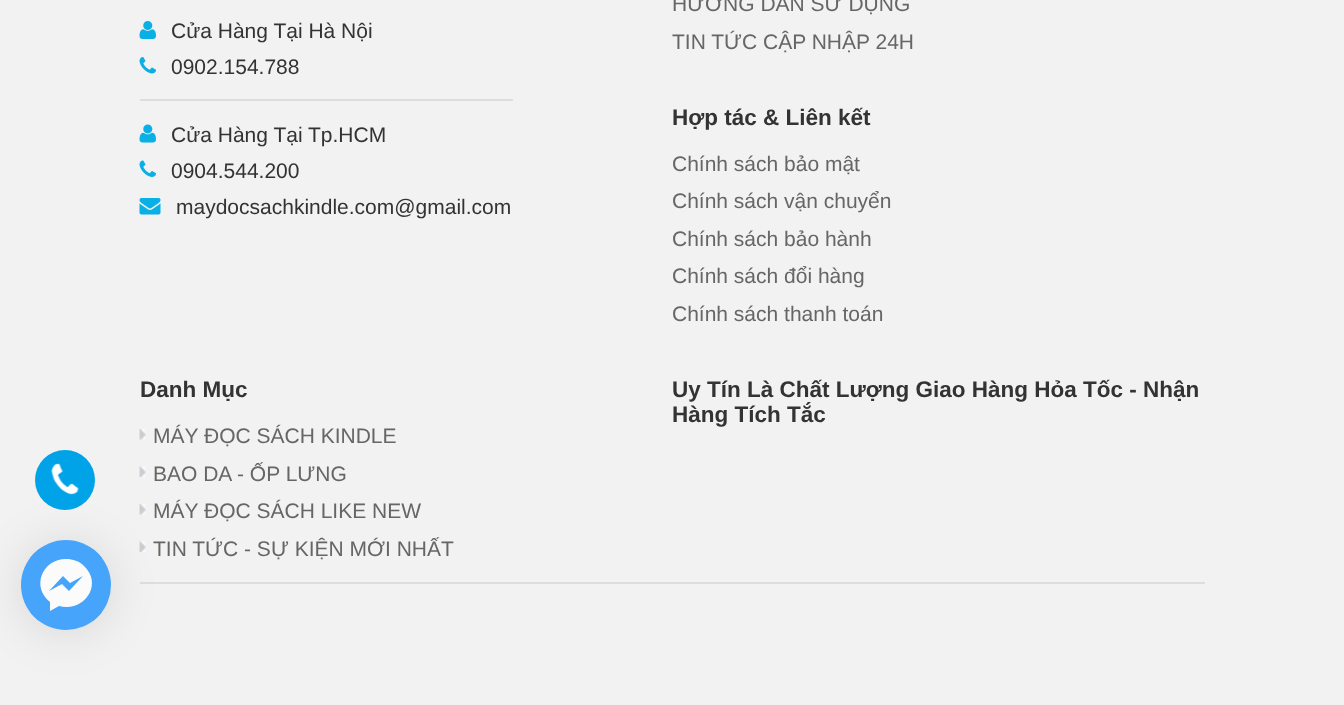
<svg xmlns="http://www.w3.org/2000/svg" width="1344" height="705">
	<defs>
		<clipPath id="clip1"><rect x="21" y="540" width="90" height="90" rx="45" /></clipPath>
	</defs>
	<rect width="100%" height="100%" fill="#F2F2F2" />
	<image x="139" y="466" width="7" height="11" href="assets/img8.png" />
	<image x="139" y="504" width="7" height="11" href="assets/img7.png" />
	<image x="139" y="541" width="7" height="11" href="assets/img8.png" />
	<rect x="140" y="582" width="1065" height="2" fill="#DDDDDD" />
	<rect x="21" y="543" width="90" height="90" rx="45" fill="#000000" fill-opacity="0.11" filter="blur(24px)" />
	<circle cx="65" cy="480" r="30" fill="#00A2E8" />
	<image x="51" y="463" width="28" height="32" href="assets/img1.png" />
	<rect x="140" y="99" width="373" height="2" fill="#DDDDDD" />
	<image x="139" y="21" width="17" height="18" href="assets/img2.png" />
	<text x="171" y="38" font-family="Liberation Sans" font-size="21" fill="#333333">Cửa Hàng Tại Hà Nội</text>
	<image x="139" y="57" width="17" height="17" href="assets/img3.png" />
	<text x="171" y="74" font-family="Liberation Sans" font-size="21" fill="#333333">0902.154.788</text>
	<image x="139" y="124" width="17" height="19" href="assets/img4.png" />
	<text x="171" y="142" font-family="Liberation Sans" font-size="21" fill="#333333">Cửa Hàng Tại Tp.HCM</text>
	<image x="139" y="160" width="17" height="17" href="assets/img5.png" />
	<text x="171" y="178" font-family="Liberation Sans" font-size="21" fill="#333333">0904.544.200</text>
	<image x="139" y="198" width="22" height="17" href="assets/img6.png" />
	<text x="176" y="214" font-family="Liberation Sans" font-size="21" fill="#333333">maydocsachkindle.com@gmail.com</text>
	<g font-family="Liberation Sans" font-size="21" fill="#666666">
		<text x="672" y="11">HƯỚNG DẪN SỬ DỤNG</text>
		<text x="672" y="49">TIN TỨC CẬP NHẬP 24H</text>
	</g>
	<text x="672" y="125" font-family="Liberation Sans" font-size="22.5" font-weight="700" fill="#333333">Hợp tác &amp; Liên kết</text>
	<g font-family="Liberation Sans" font-size="21" fill="#666666">
		<text x="672" y="171">Chính sách bảo mật</text>
		<text x="672" y="208">Chính sách vận chuyển</text>
		<text x="672" y="246">Chính sách bảo hành</text>
		<text x="672" y="283">Chính sách đổi hàng</text>
		<text x="672" y="321">Chính sách thanh toán</text>
	</g>
	<text x="140" y="397" font-family="Liberation Sans" font-size="22.5" font-weight="700" fill="#333333">Danh Mục</text>
	<image x="139" y="429" width="7" height="11" href="assets/img7.png" />
	<g font-family="Liberation Sans" font-size="21" fill="#666666">
		<text x="153" y="443">MÁY ĐỌC SÁCH KINDLE</text>
		<text x="153" y="481">BAO DA - ỐP LƯNG</text>
		<text x="153" y="518">MÁY ĐỌC SÁCH LIKE NEW</text>
		<text x="153" y="556">TIN TỨC - SỰ KIỆN MỚI NHẤT</text>
	</g>
	<g font-family="Liberation Sans" font-size="22.5" font-weight="700" fill="#333333">
		<text x="672" y="397">Uy Tín Là Chất Lượng Giao Hàng Hỏa Tốc - Nhận</text>
		<text x="672" y="422">Hàng Tích Tắc</text>
	</g>
	<circle cx="66" cy="585" r="45" fill="#46A4FB" />
	<g clip-path="url(#clip1)">
		<rect x="30" y="549" width="72" height="72" fill="#46A4FB" />
	</g>
	<path d="M66 559C42 559 31 587 50 602V611L59 606C83 613 104 585 84 566C79 561 73 559 66 559ZM69 591L62 584L49 591L63 576L70 583L83 576Z" fill="#FBFBFB" />
</svg>
